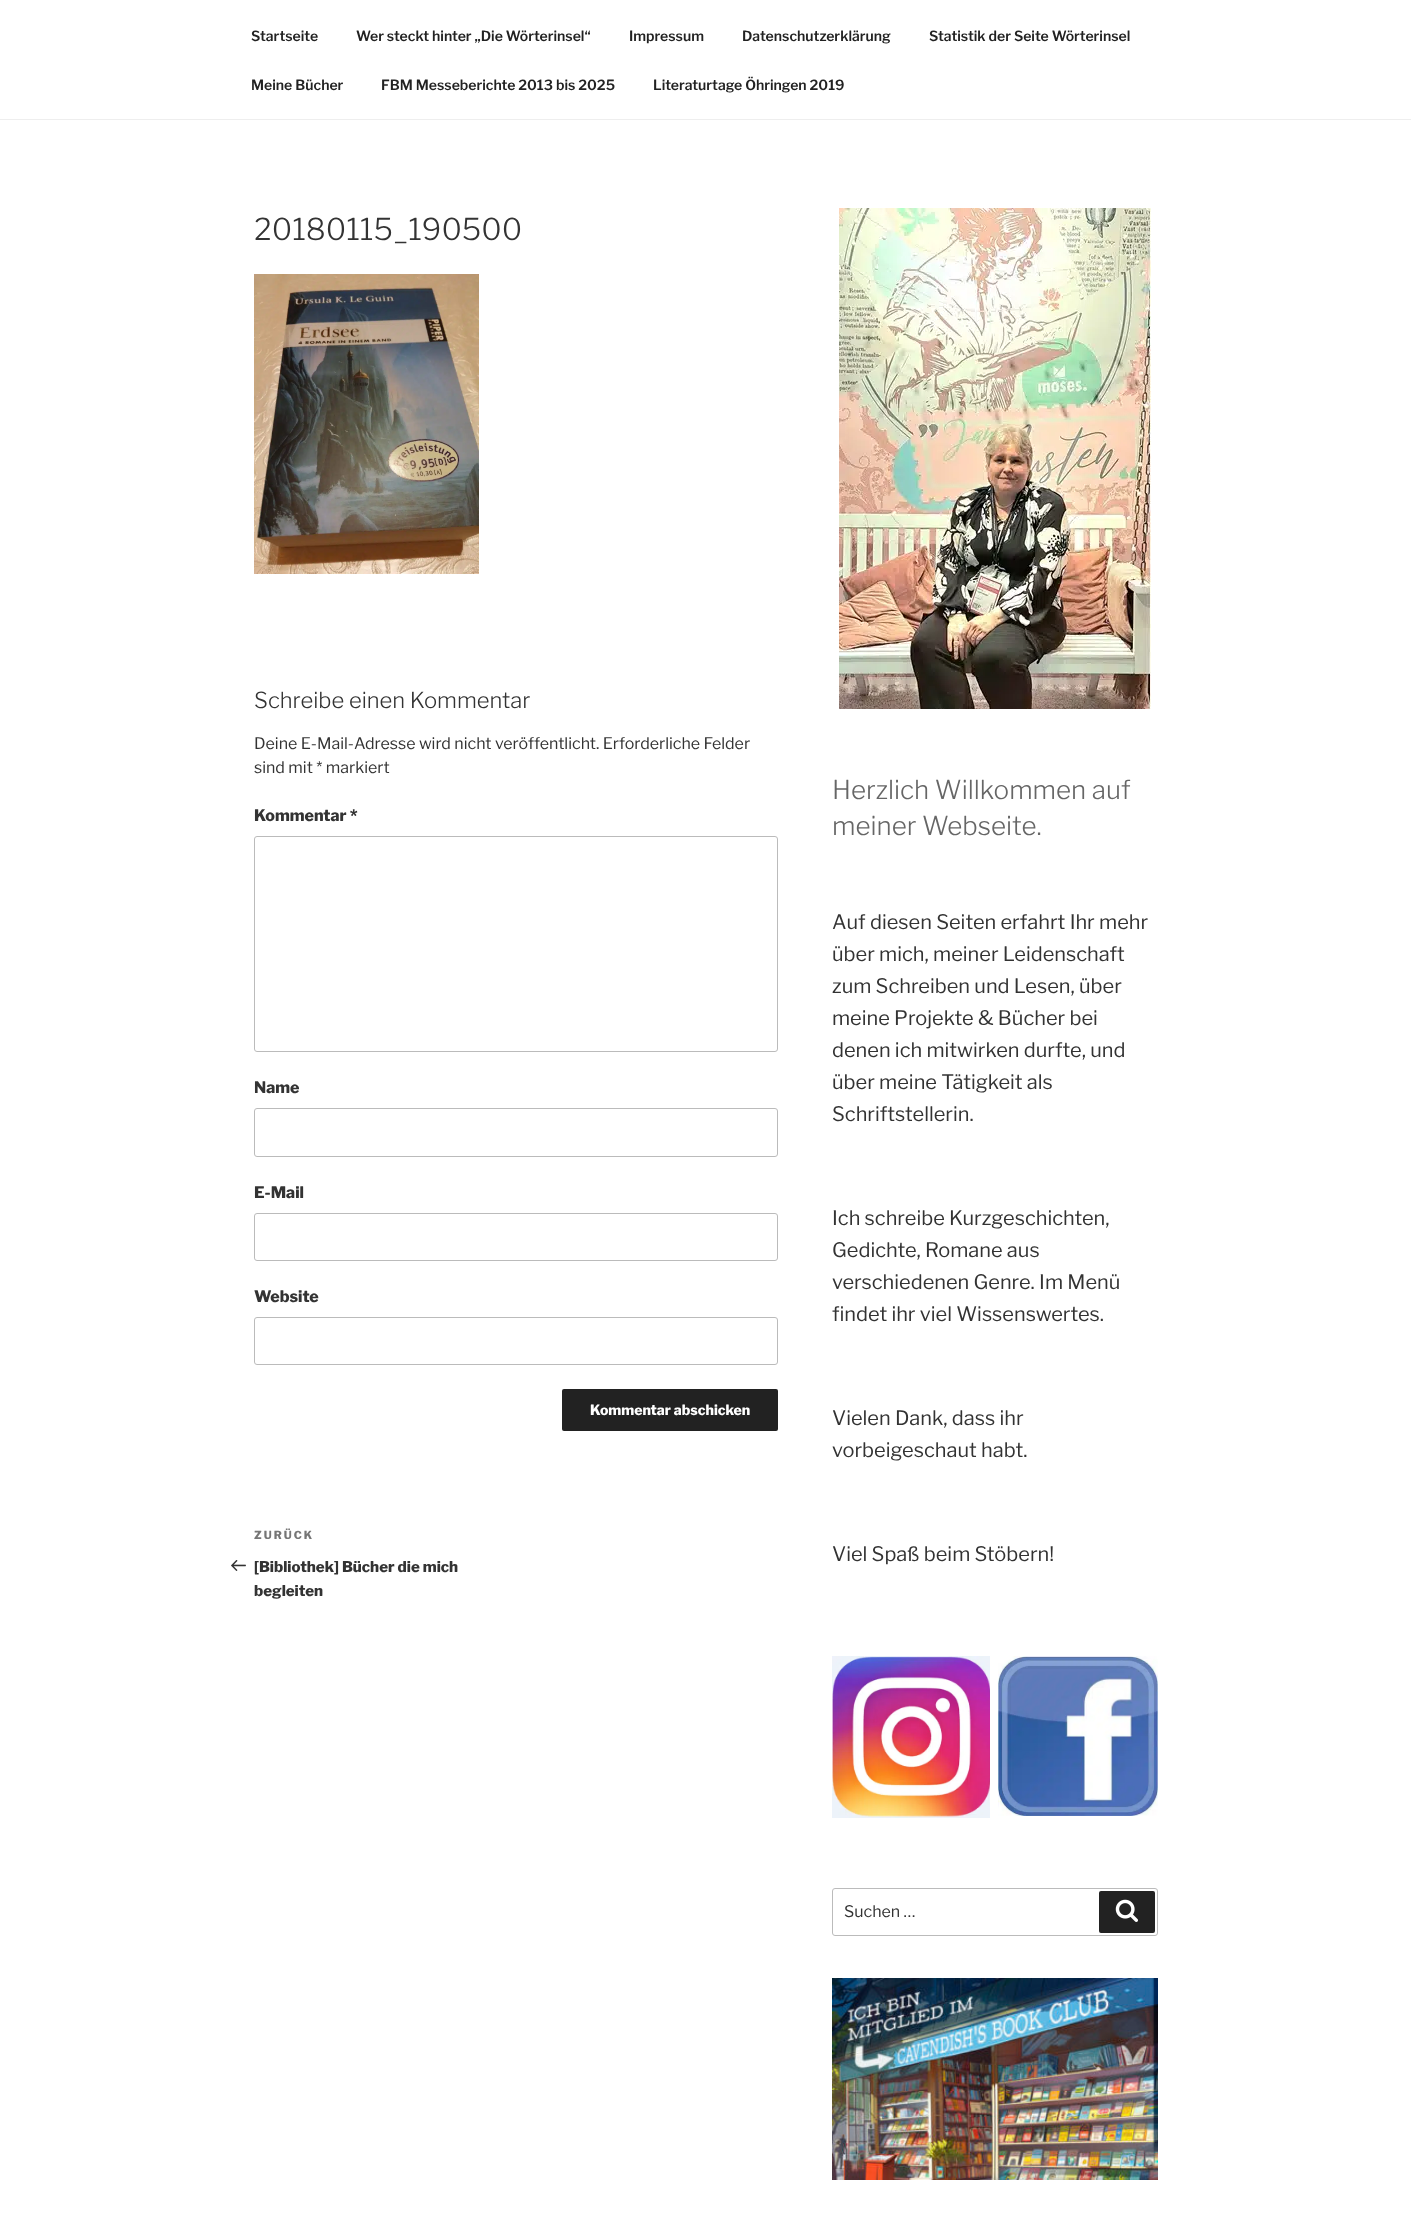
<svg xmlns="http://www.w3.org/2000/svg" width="1411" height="2219">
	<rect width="100%" height="100%" fill="#FFFFFF" />
	<rect x="0" y="119" width="1411" height="1" fill="#EEEEEE" />
	<g font-family="'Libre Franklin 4'" font-size="14" font-weight="100" fill="#222222">
		<text x="251" y="41">Startseite</text>
		<text x="356" y="41">Wer steckt hinter „Die Wörterinsel“</text>
		<text x="629" y="41">Impressum</text>
		<text x="742" y="41">Datenschutzerklärung</text>
		<text x="929" y="41">Statistik der Seite Wörterinsel</text>
		<text x="251" y="90">Meine Bücher</text>
		<text x="381" y="90">FBM Messeberichte 2013 bis 2025</text>
		<text x="653" y="90">Literaturtage Öhringen 2019</text>
	</g>
	<text x="254" y="240" font-family="'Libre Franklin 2'" font-size="30" font-weight="100" fill="#333333">20180115_190500</text>
	<image x="254" y="274" width="225" height="300" href="assets/img1.png" />
	<text x="254" y="708" font-family="'Libre Franklin 2'" font-size="22" font-weight="100" fill="#333333">Schreibe einen Kommentar</text>
	<g font-family="'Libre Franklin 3'" font-size="16" font-weight="100" fill="#333333">
		<text x="254" y="749">Deine E-Mail-Adresse wird nicht veröffentlicht. Erforderliche Felder</text>
		<text x="254" y="773">sind mit * markiert</text>
	</g>
	<text x="254" y="821" font-family="Libre Franklin" font-size="16" font-weight="100" fill="#333333">Kommentar *</text>
	<rect x="254.5" y="836.5" width="523" height="215" rx="2.5" fill="none" stroke="#BBBBBB" />
	<text x="254" y="1093" font-family="Libre Franklin" font-size="16" font-weight="100" fill="#333333">Name</text>
	<rect x="254.5" y="1108.5" width="523" height="48" rx="2.5" fill="none" stroke="#BBBBBB" />
	<text x="254" y="1198" font-family="Libre Franklin" font-size="16" font-weight="100" fill="#333333">E-Mail</text>
	<rect x="254.5" y="1213.5" width="523" height="47" rx="2.5" fill="none" stroke="#BBBBBB" />
	<text x="254" y="1302" font-family="Libre Franklin" font-size="16" font-weight="100" fill="#333333">Website</text>
	<rect x="254.5" y="1317.5" width="523" height="47" rx="2.5" fill="none" stroke="#BBBBBB" />
	<rect x="562" y="1389" width="216" height="42" rx="2" fill="#222222" />
	<text x="590" y="1415" font-family="Libre Franklin" font-size="14" font-weight="100" fill="#FFFFFF">Kommentar abschicken</text>
	<text x="254" y="1539" font-family="Libre Franklin" font-size="11" font-weight="100" letter-spacing="2" fill="#767676">ZURÜCK</text>
	<image x="231" y="1560" width="15" height="11" href="assets/img2.png" />
	<g font-family="Libre Franklin" font-size="15" font-weight="100" fill="#333333">
		<text x="254" y="1572">[Bibliothek] Bücher die mich</text>
		<text x="254" y="1596">begleiten</text>
	</g>
	<image x="839" y="208" width="312" height="501" href="assets/img3.png" />
	<g font-family="'Libre Franklin 2'" font-size="26" font-weight="100" fill="#666666">
		<text x="832" y="799">Herzlich Willkommen auf</text>
		<text x="832" y="835">meiner Webseite.</text>
	</g>
	<g font-family="'Libre Franklin 3'" font-size="20" font-weight="100" fill="#333333">
		<text x="832" y="929">Auf diesen Seiten erfahrt Ihr mehr</text>
		<text x="832" y="961">über mich, meiner Leidenschaft</text>
		<text x="832" y="993">zum Schreiben und Lesen, über</text>
		<text x="832" y="1025">meine Projekte &amp; Bücher bei</text>
		<text x="832" y="1057">denen ich mitwirken durfte, und</text>
		<text x="832" y="1089">über meine Tätigkeit als</text>
		<text x="832" y="1121">Schriftstellerin.</text>
		<text x="832" y="1225">Ich schreibe Kurzgeschichten,</text>
		<text x="832" y="1257">Gedichte, Romane aus</text>
		<text x="832" y="1289">verschiedenen Genre. Im Menü</text>
		<text x="832" y="1321">findet ihr viel Wissenswertes.</text>
		<text x="832" y="1425">Vielen Dank, dass ihr</text>
		<text x="832" y="1457">vorbeigeschaut habt.</text>
		<text x="832" y="1561">Viel Spaß beim Stöbern!</text>
	</g>
	<image x="832" y="1656" width="158" height="162" href="assets/img4.png" />
	<image x="998" y="1656" width="160" height="160" href="assets/img5.png" />
	<rect x="832.5" y="1888.5" width="325" height="47" rx="2.5" fill="none" stroke="#BBBBBB" />
	<text x="844" y="1917" font-family="'Libre Franklin 3'" font-size="16" font-weight="100" fill="#333333">Suchen …</text>
	<rect x="1099" y="1891" width="56" height="42" rx="2" fill="#222222" />
	<image x="1115" y="1899" width="23" height="23" href="assets/img6.png" />
	<image x="832" y="1978" width="326" height="202" href="assets/img7.png" />
</svg>
